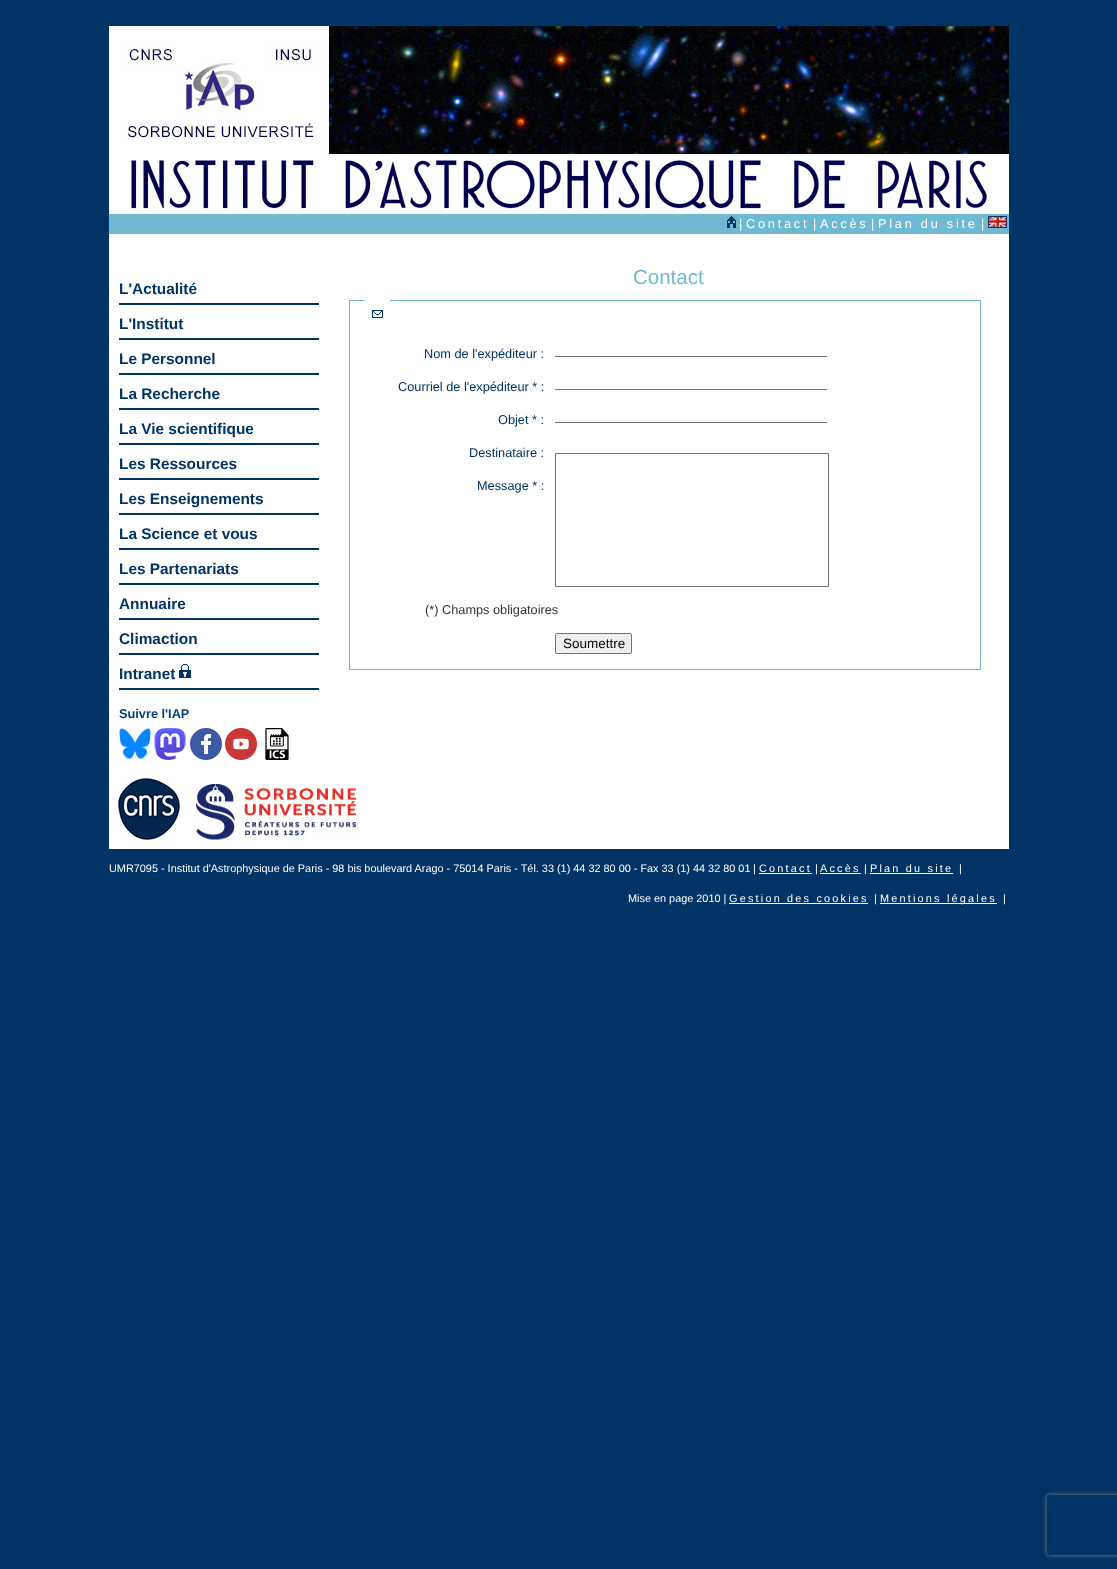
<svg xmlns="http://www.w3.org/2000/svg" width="1117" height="1569">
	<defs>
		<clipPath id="clip1"><path d="M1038 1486H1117V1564H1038ZM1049 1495H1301C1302 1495 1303 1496 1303 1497V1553C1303 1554 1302 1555 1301 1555H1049C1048 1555 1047 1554 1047 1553V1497C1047 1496 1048 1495 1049 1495Z" clip-rule="evenodd" /></clipPath>
	</defs>
	<rect width="100%" height="100%" fill="#003366" />
	<rect x="109" y="26" width="900" height="188" fill="#FFFFFF" />
	<image x="125" y="26" width="884" height="128" href="assets/img1.png" />
	<image x="131" y="160" width="856" height="49" href="assets/img2.png" />
	<rect x="109" y="214" width="900" height="20" fill="#6FBAD2" />
	<image x="727" y="216" width="9" height="12" href="assets/img3.png" />
	<text x="739" y="228" font-family="Liberation Sans" font-size="12.75" fill="#FFFFFF">|</text>
	<text x="746" y="228" font-family="Liberation Sans" font-size="12.75" letter-spacing="2.75" fill="#FFFFFF">Contact</text>
	<text x="813" y="228" font-family="Liberation Sans" font-size="12.75" fill="#FFFFFF">|</text>
	<text x="820" y="228" font-family="Liberation Sans" font-size="12.75" letter-spacing="2.75" fill="#FFFFFF">Accès</text>
	<text x="871" y="228" font-family="Liberation Sans" font-size="12.75" fill="#FFFFFF">|</text>
	<text x="878" y="228" font-family="Liberation Sans" font-size="12.75" letter-spacing="2.75" fill="#FFFFFF">Plan du site</text>
	<text x="981" y="228" font-family="Liberation Sans" font-size="12.75" fill="#FFFFFF">|</text>
	<image x="988" y="216" width="19" height="12" href="assets/img4.png" />
	<rect x="109" y="234" width="900" height="615" fill="#FFFFFF" />
	<image x="118" y="778" width="62" height="62" href="assets/img5.png" />
	<image x="196" y="784" width="160" height="56" href="assets/img6.png" />
	<rect x="119" y="303" width="200" height="2" fill="#003366" />
	<text x="119" y="294" font-family="Liberation Sans" font-size="15.4" font-weight="700" fill="#003366">L'Actualité</text>
	<rect x="119" y="338" width="200" height="2" fill="#003366" />
	<text x="119" y="329" font-family="Liberation Sans" font-size="15.4" font-weight="700" fill="#003366">L'Institut</text>
	<rect x="119" y="373" width="200" height="2" fill="#003366" />
	<text x="119" y="364" font-family="Liberation Sans" font-size="15.4" font-weight="700" fill="#003366">Le Personnel</text>
	<rect x="119" y="408" width="200" height="2" fill="#003366" />
	<text x="119" y="399" font-family="Liberation Sans" font-size="15.4" font-weight="700" fill="#003366">La Recherche</text>
	<rect x="119" y="443" width="200" height="2" fill="#003366" />
	<text x="119" y="434" font-family="Liberation Sans" font-size="15.4" font-weight="700" fill="#003366">La Vie scientifique</text>
	<rect x="119" y="478" width="200" height="2" fill="#003366" />
	<text x="119" y="469" font-family="Liberation Sans" font-size="15.4" font-weight="700" fill="#003366">Les Ressources</text>
	<rect x="119" y="513" width="200" height="2" fill="#003366" />
	<text x="119" y="504" font-family="Liberation Sans" font-size="15.4" font-weight="700" fill="#003366">Les Enseignements</text>
	<rect x="119" y="548" width="200" height="2" fill="#003366" />
	<text x="119" y="539" font-family="Liberation Sans" font-size="15.4" font-weight="700" fill="#003366">La Science et vous</text>
	<rect x="119" y="583" width="200" height="2" fill="#003366" />
	<text x="119" y="574" font-family="Liberation Sans" font-size="15.4" font-weight="700" fill="#003366">Les Partenariats</text>
	<rect x="119" y="618" width="200" height="2" fill="#003366" />
	<text x="119" y="609" font-family="Liberation Sans" font-size="15.4" font-weight="700" fill="#003366">Annuaire</text>
	<rect x="119" y="653" width="200" height="2" fill="#003366" />
	<text x="119" y="644" font-family="Liberation Sans" font-size="15.4" font-weight="700" fill="#003366">Climaction</text>
	<image x="179" y="664" width="12" height="14" href="assets/img7.png" />
	<rect x="119" y="688" width="200" height="2" fill="#003366" />
	<text x="119" y="679" font-family="Liberation Sans" font-size="15.4" font-weight="700" fill="#003366">Intranet</text>
	<text x="119" y="718" font-family="Liberation Sans" font-size="12.75" font-weight="700" fill="#004080">Suivre l'IAP</text>
	<image x="119" y="728" width="32" height="31" href="assets/img8.png" />
	<image x="154" y="728" width="32" height="32" href="assets/img9.png" />
	<image x="190" y="728" width="32" height="32" href="assets/img10.png" />
	<image x="225" y="728" width="32" height="32" href="assets/img11.png" />
	<image x="265" y="728" width="24" height="32" href="assets/img12.png" />
	<text x="633" y="284" font-family="Liberation Sans" font-size="20.5" fill="#6FBAD2">Contact</text>
	<rect x="349.5" y="300.5" width="631" height="369" fill="none" stroke="#6FBAD2" />
	<rect x="365" y="300" width="25" height="1" fill="#FFFFFF" />
	<image x="372" y="310" width="11" height="8" href="assets/img13.png" />
	<text x="424" y="358" font-family="Liberation Sans" font-size="12.75" fill="#003366">Nom de l'expéditeur :</text>
	<rect x="555" y="356" width="272" height="1" fill="#777777" />
	<text x="398" y="391" font-family="Liberation Sans" font-size="12.75" fill="#003366">Courriel de l'expéditeur * :</text>
	<rect x="555" y="389" width="272" height="1" fill="#777777" />
	<text x="498" y="424" font-family="Liberation Sans" font-size="12.75" fill="#003366">Objet * :</text>
	<rect x="555" y="422" width="272" height="1" fill="#777777" />
	<text x="469" y="457" font-family="Liberation Sans" font-size="12.75" fill="#003366">Destinataire :</text>
	<rect x="555.5" y="453.5" width="273" height="133" fill="none" stroke="#777777" />
	<text x="477" y="490" font-family="Liberation Sans" font-size="12.75" fill="#003366">Message * :</text>
	<text x="425" y="614" font-family="Liberation Sans" font-size="12.75" fill="#333333">(*) Champs obligatoires</text>
	<rect x="555.5" y="633.5" width="76" height="20" rx="1.5" fill="#EFEFEF" stroke="#767676" />
	<text x="563" y="648" font-family="Liberation Sans" font-size="13.5" fill="#000000">Soumettre</text>
	<g clip-path="url(#clip1)">
		<rect x="1047" y="1495" width="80" height="60" rx="2" fill="#808080" filter="blur(2.5px)" />
	</g>
	<g font-family="Liberation Sans" font-size="10.88" fill="#FFFFFF">
		<text x="109" y="872">UMR7095 - Institut d'Astrophysique de Paris - 98 bis boulevard Arago - 75014 Paris - Tél. 33 (1) 44 32 80 00 - Fax 33 (1) 44 32 80 01</text>
		<text x="753" y="872">|</text>
	</g>
	<text x="759" y="872" font-family="Liberation Sans" font-size="10.88" letter-spacing="2.2" fill="#FFFFFF">Contact</text>
	<rect x="759" y="873" width="53" height="1" fill="#FFFFFF" />
	<text x="815" y="872" font-family="Liberation Sans" font-size="10.88" fill="#FFFFFF">|</text>
	<text x="820" y="872" font-family="Liberation Sans" font-size="10.88" letter-spacing="2.2" fill="#FFFFFF">Accès</text>
	<rect x="820" y="873" width="41" height="1" fill="#FFFFFF" />
	<text x="864" y="872" font-family="Liberation Sans" font-size="10.88" fill="#FFFFFF">|</text>
	<text x="870" y="872" font-family="Liberation Sans" font-size="10.88" letter-spacing="2.2" fill="#FFFFFF">Plan du site</text>
	<rect x="870" y="873" width="83" height="1" fill="#FFFFFF" />
	<g font-family="Liberation Sans" font-size="10.88" fill="#FFFFFF">
		<text x="959" y="872">|</text>
		<text x="628" y="902">Mise en page 2010 |</text>
	</g>
	<text x="729" y="902" font-family="Liberation Sans" font-size="10.88" letter-spacing="2.2" fill="#FFFFFF">Gestion des cookies</text>
	<rect x="729" y="903" width="139" height="1" fill="#FFFFFF" />
	<text x="874" y="902" font-family="Liberation Sans" font-size="10.88" fill="#FFFFFF">|</text>
	<rect x="880" y="903" width="117" height="1" fill="#FFFFFF" />
	<text x="880" y="902" font-family="Liberation Sans" font-size="10.88" letter-spacing="2.2" fill="#FFFFFF">Mentions légales</text>
	<text x="1003" y="902" font-family="Liberation Sans" font-size="10.88" fill="#FFFFFF">|</text>
</svg>
